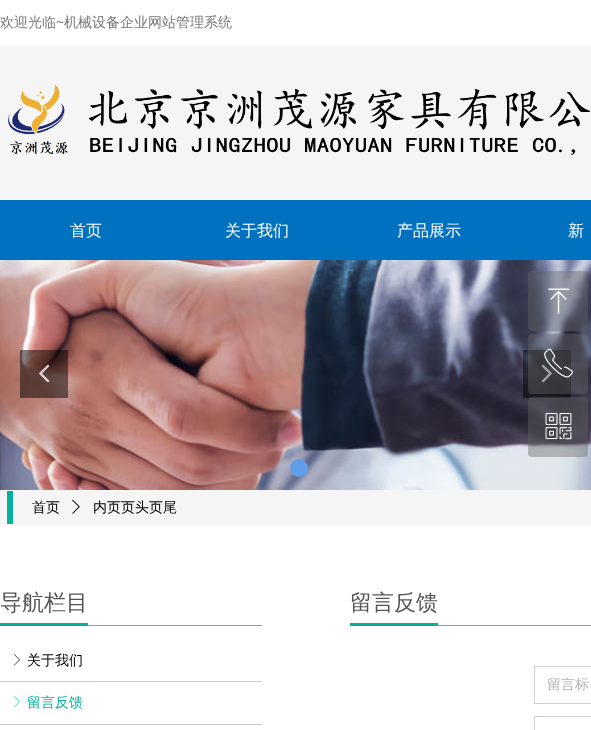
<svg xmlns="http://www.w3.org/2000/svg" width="591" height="730">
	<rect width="100%" height="100%" fill="#FFFFFF" />
	<text x="0" y="27" font-family="WenQuanYi Zen Hei" font-size="14" font-weight="500" fill="#777777">欢迎光临</text>
	<text x="56" y="27" font-family="Noto Sans" font-size="14" fill="#777777">~</text>
	<text x="64" y="27" font-family="WenQuanYi Zen Hei" font-size="14" font-weight="500" fill="#777777">机械设备企业网站管理系统</text>
	<rect x="0" y="45" width="591" height="155" fill="#F5F5F5" />
	<image x="7" y="84" width="584" height="72" href="assets/img1.png" />
	<rect x="0" y="200" width="591" height="60" fill="#0071BF" />
	<g font-family="WenQuanYi Zen Hei" font-size="16" font-weight="500" fill="#FFFFFF">
		<text x="70" y="236">首页</text>
		<text x="225" y="236">关于我们</text>
		<text x="397" y="236">产品展示</text>
		<text x="568" y="236">新</text>
	</g>
	<image x="0" y="260" width="591" height="230" href="assets/img2.png" />
	<rect x="20" y="350" width="48" height="48" fill="#000000" fill-opacity="0.49" />
	<image x="38" y="364" width="12" height="19" href="assets/img3.png" />
	<rect x="523" y="350" width="48" height="48" fill="#000000" fill-opacity="0.49" />
	<image x="541" y="364" width="12" height="19" href="assets/img4.png" />
	<circle cx="299" cy="468" r="9" fill="#609EE9" />
	<rect x="0" y="490" width="591" height="35" fill="#F5F5F5" />
	<rect x="7" y="491" width="6" height="33" fill="#02B29C" />
	<text x="32" y="512" font-family="WenQuanYi Zen Hei" font-size="14" font-weight="500" fill="#000000">首页</text>
	<image x="72" y="499" width="8" height="15" href="assets/img5.png" />
	<text x="93" y="512" font-family="WenQuanYi Zen Hei" font-size="14" font-weight="500" fill="#000000">内页页头页尾</text>
	<rect x="88" y="625" width="174" height="1" fill="#999999" />
	<text x="0" y="610" font-family="WenQuanYi Zen Hei" font-size="22" font-weight="500" fill="#555555">导航栏目</text>
	<rect x="0" y="623" width="88" height="3" fill="#02B29C" />
	<rect x="438" y="625" width="153" height="1" fill="#999999" />
	<text x="350" y="610" font-family="WenQuanYi Zen Hei" font-size="22" font-weight="500" fill="#555555">留言反馈</text>
	<rect x="350" y="623" width="88" height="3" fill="#02B29C" />
	<image x="14" y="654" width="6" height="12" href="assets/img6.png" />
	<text x="27" y="665" font-family="WenQuanYi Zen Hei" font-size="14" font-weight="500" fill="#000000">关于我们</text>
	<rect x="0" y="681" width="262" height="1" fill="#CCCCCC" />
	<image x="14" y="696" width="6" height="12" href="assets/img7.png" />
	<text x="27" y="707" font-family="WenQuanYi Zen Hei" font-size="14" font-weight="500" fill="#03B29C">留言反馈</text>
	<rect x="0" y="724" width="262" height="1" fill="#CCCCCC" />
	<rect x="534.5" y="666.5" width="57" height="37" fill="none" stroke="#CCD1D9" />
	<text x="547" y="689" font-family="WenQuanYi Zen Hei" font-size="14" font-weight="500" fill="#B3B3B3">留言标</text>
	<rect x="534.5" y="716.5" width="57" height="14" fill="none" stroke="#CCD1D9" />
	<rect x="528" y="271" width="60" height="60" rx="4" fill="#666666" fill-opacity="0.41" />
	<image x="548" y="288" width="21" height="26" href="assets/img8.png" />
	<rect x="528" y="334" width="60" height="60" rx="4" fill="#666666" fill-opacity="0.41" />
	<image x="544" y="348" width="29" height="30" href="assets/img9.png" />
	<rect x="528" y="397" width="60" height="60" rx="4" fill="#666666" fill-opacity="0.41" />
	<image x="545" y="413" width="27" height="27" href="assets/img10.png" />
</svg>
